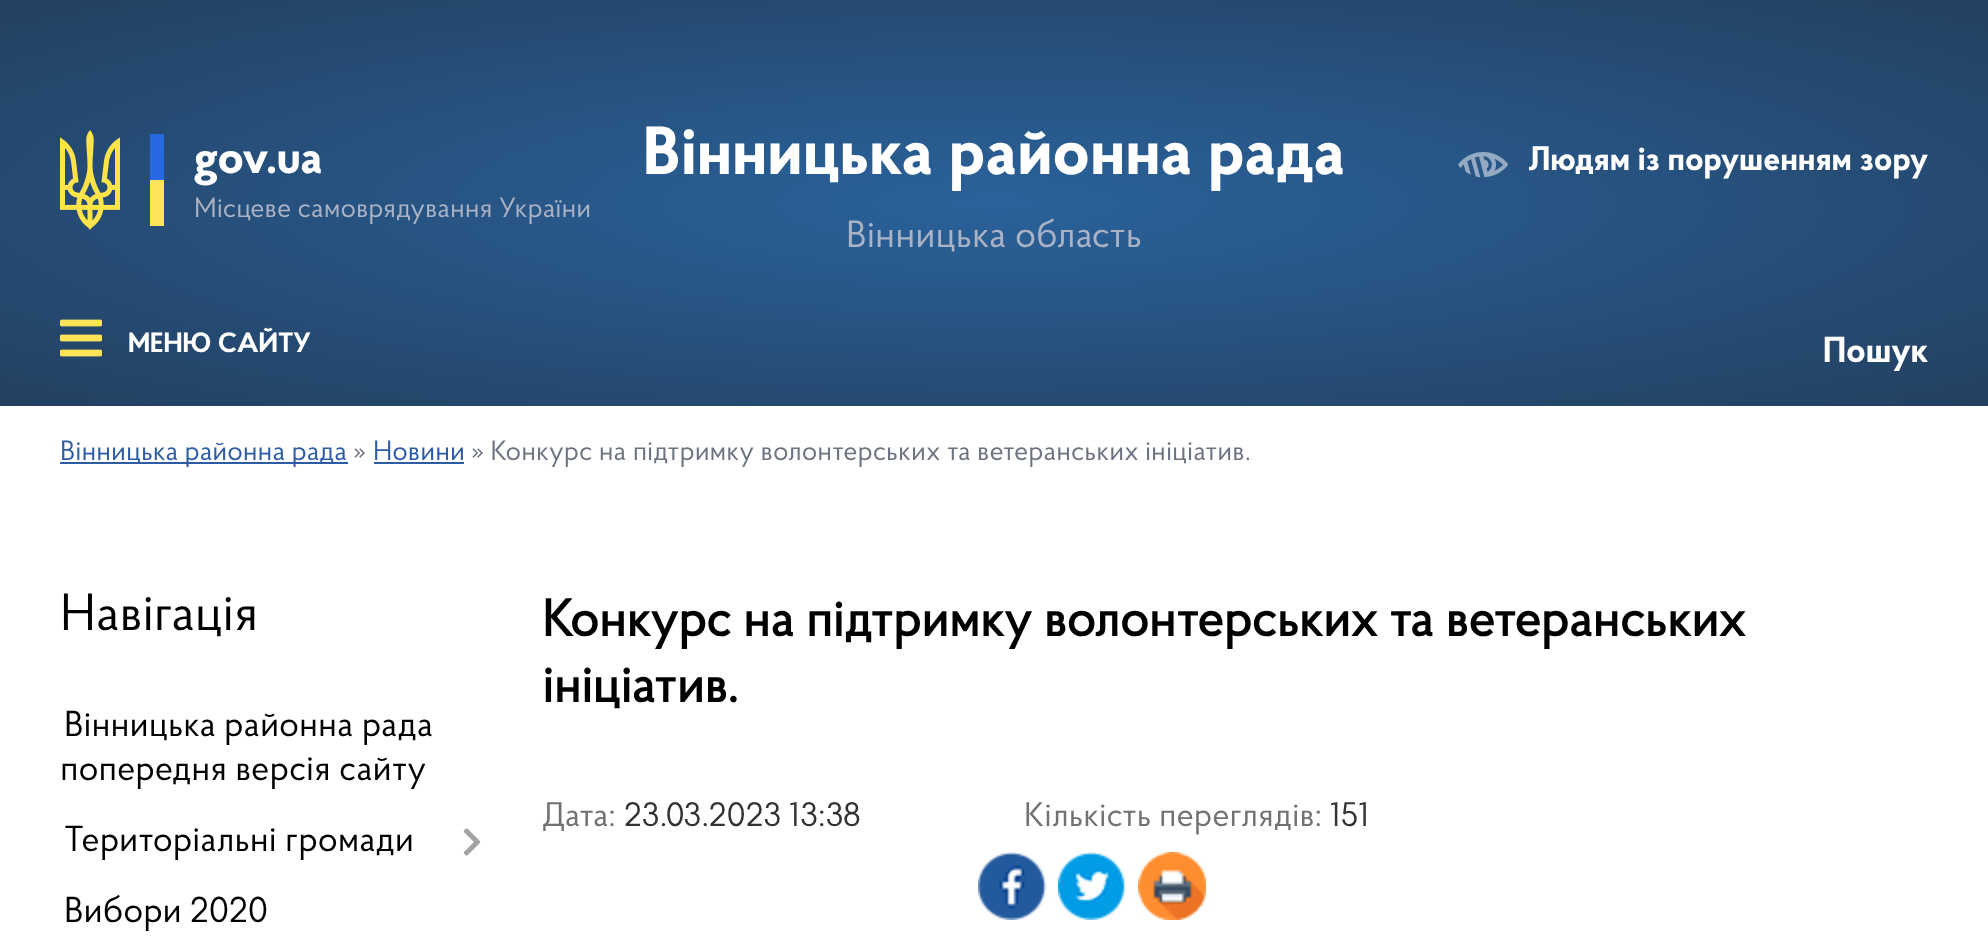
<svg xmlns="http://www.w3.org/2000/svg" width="1988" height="950">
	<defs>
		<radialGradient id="g1" gradientUnits="userSpaceOnUse" cx="0" cy="0" r="1" gradientTransform="matrix(1406 0 0 287 994 203)"><stop offset="0" stop-color="#2A629B" /><stop offset="1" stop-color="#234060" /></radialGradient>
	</defs>
	<rect width="100%" height="100%" fill="#FFFFFF" />
	<rect x="0" y="0" width="1988" height="406" fill="url(#g1)" />
	<image x="60" y="130" width="60" height="100" href="assets/img1.png" />
	<rect x="150" y="134" width="14" height="46" fill="#2669E3" />
	<rect x="150" y="180" width="14" height="46" fill="#FFE358" />
	<text x="194" y="173" font-family="'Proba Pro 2'" font-size="48" font-weight="700" fill="#FFFFFF">gov.ua</text>
	<text x="194" y="217" font-family="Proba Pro" font-size="28" fill="#AAB3C6">Місцеве самоврядування України</text>
	<text x="643" y="174" font-family="'Proba Pro 2'" font-size="68" font-weight="700" fill="#FFFFFF">Вінницька районна рада</text>
	<text x="846" y="247" font-family="Proba Pro" font-size="38" fill="#AAB3C6">Вінницька область</text>
	<image x="1458" y="152" width="50" height="26" href="assets/img2.png" />
	<text x="1528" y="170" font-family="'Proba Pro 2'" font-size="34" font-weight="700" fill="#FFFFFF">Людям із порушенням зору</text>
	<image x="60" y="319" width="42" height="38" href="assets/img3.png" />
	<text x="128" y="352" font-family="'Proba Pro 2'" font-size="28" font-weight="700" fill="#FFFFFF">МЕНЮ САЙТУ</text>
	<text x="1823" y="362" font-family="'Proba Pro 2'" font-size="36" font-weight="700" fill="#FFFFFF">Пошук</text>
	<rect x="60" y="462" width="288" height="2" fill="#2D5CA6" />
	<text x="60" y="460" font-family="Proba Pro" font-size="28" fill="#2D5CA6">Вінницька районна рада</text>
	<text x="353" y="460" font-family="Proba Pro" font-size="28" fill="#6D7381">»</text>
	<text x="373" y="460" font-family="Proba Pro" font-size="28" fill="#2D5CA6">Новини</text>
	<rect x="374" y="462" width="90" height="2" fill="#2D5CA6" />
	<text x="471" y="460" font-family="Proba Pro" font-size="28" fill="#6D7381">» Конкурс на підтримку волонтерських та ветеранських ініціатив.</text>
	<text x="60" y="630" font-family="Proba Pro" font-size="52" fill="#000000">Навігація</text>
	<g font-family="Proba Pro" font-size="36" fill="#000000">
		<text x="64" y="736">Вінницька районна рада</text>
		<text x="60" y="780">попередня версія сайту</text>
		<text x="64" y="851">Територіальні громади</text>
	</g>
	<image x="463" y="828" width="18" height="28" href="assets/img4.png" />
	<text x="64" y="922" font-family="Proba Pro" font-size="36" fill="#000000">Вибори 2020</text>
	<g font-family="Proba Pro" font-size="52" font-weight="700" fill="#000000">
		<text x="542" y="636">Конкурс на підтримку волонтерських та ветеранських</text>
		<text x="542" y="702">ініціатив.</text>
	</g>
	<text x="542" y="826" font-family="Proba Pro" font-size="34" fill="#727272">Дата:</text>
	<text x="624" y="826" font-family="Proba Pro" font-size="34" fill="#333333">23.03.2023 13:38</text>
	<text x="1024" y="826" font-family="Proba Pro" font-size="34" fill="#727272">Кількість переглядів:</text>
	<text x="1330" y="826" font-family="Proba Pro" font-size="34" fill="#333333">151</text>
	<image x="978" y="852" width="68" height="68" href="assets/img5.png" />
	<image x="1058" y="852" width="67" height="68" href="assets/img6.png" />
	<image x="1138" y="852" width="68" height="68" href="assets/img7.png" />
</svg>
